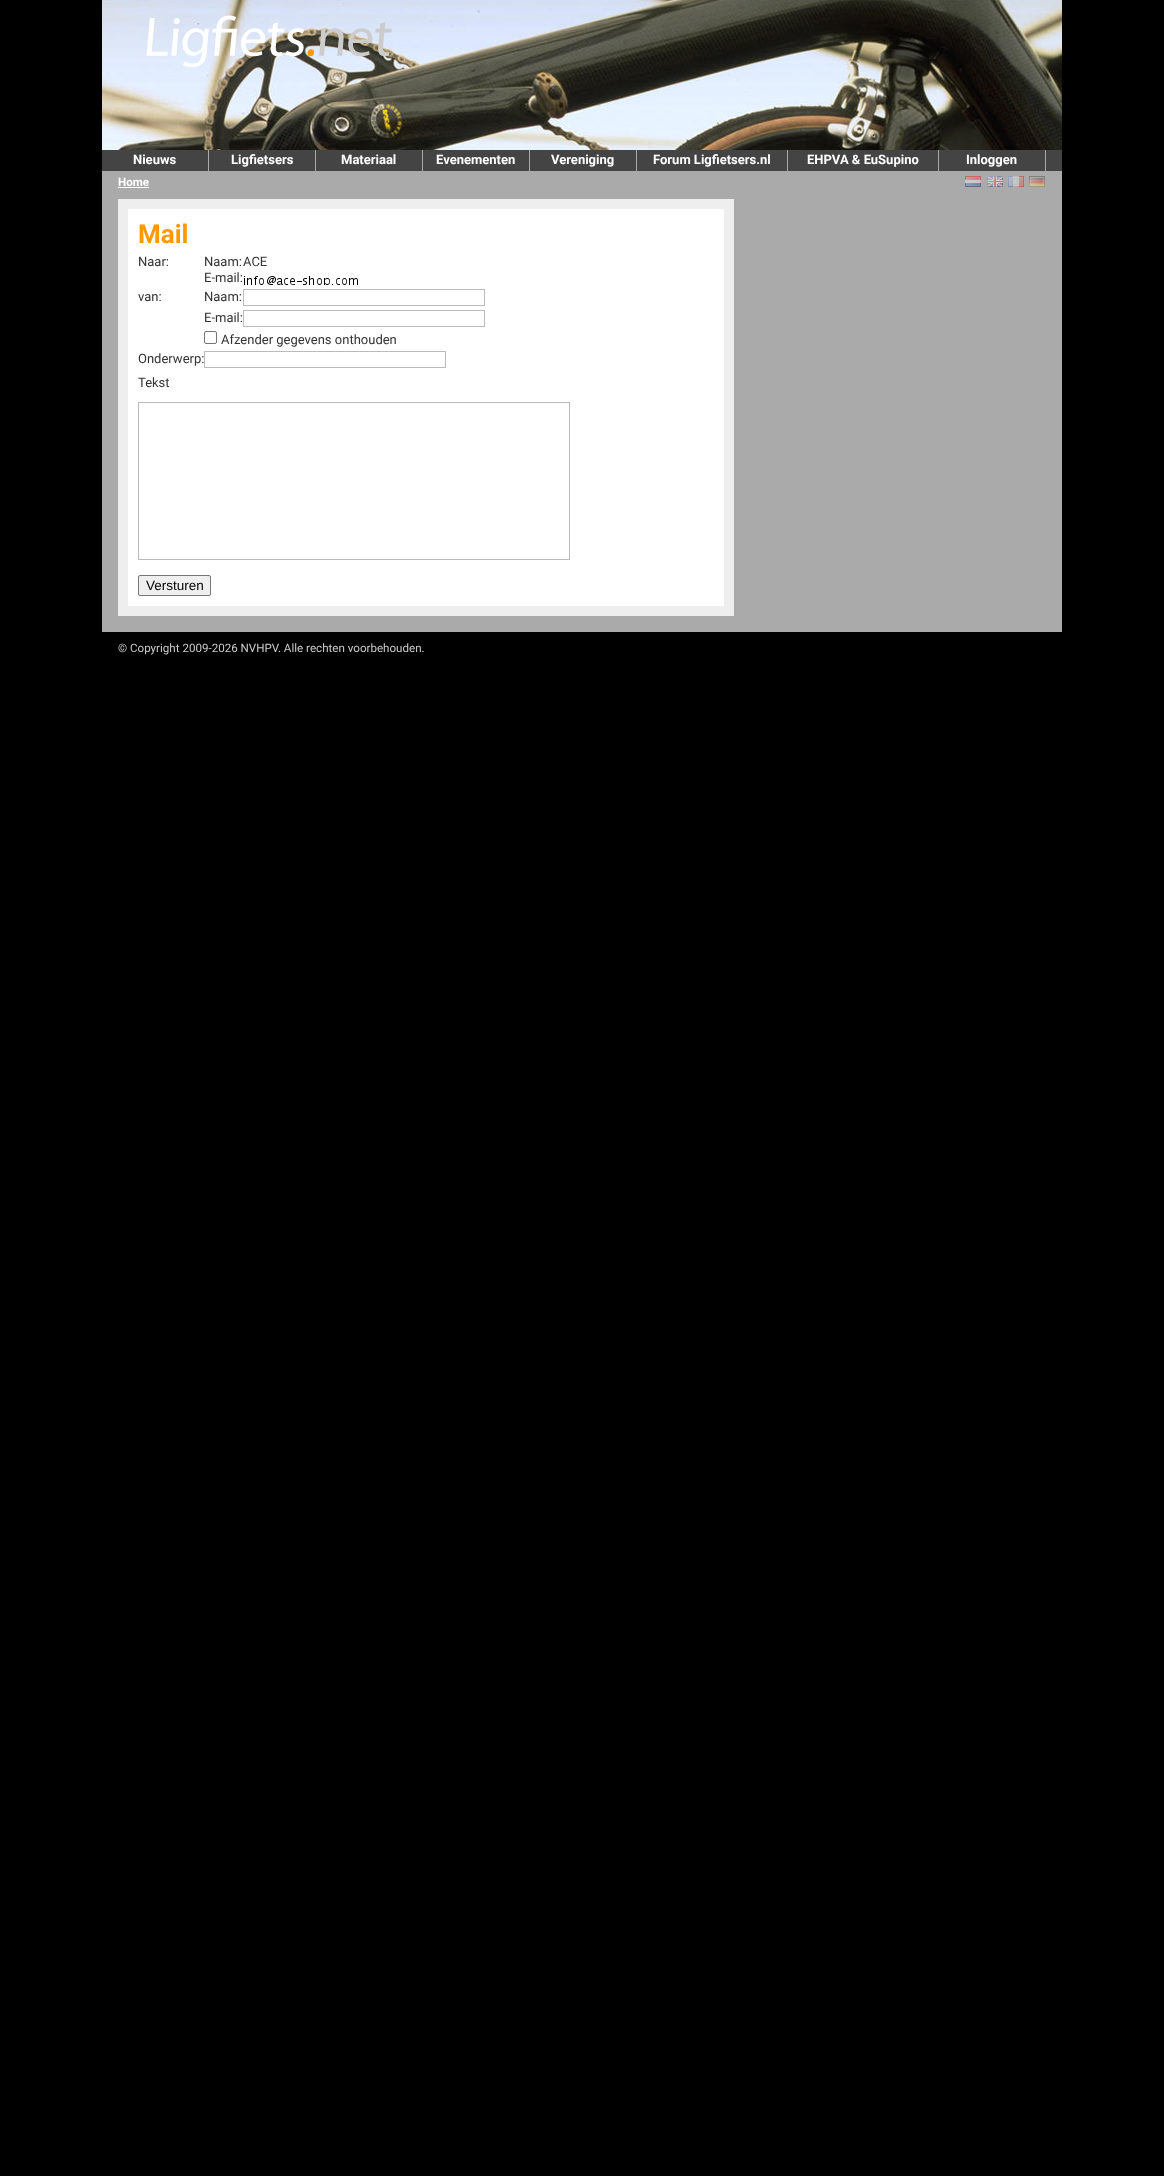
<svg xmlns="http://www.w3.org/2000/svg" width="1164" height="2176">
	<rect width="100%" height="100%" fill="#000000" />
	<image x="102" y="0" width="960" height="150" href="assets/img1.png" />
	<image x="146" y="15" width="246" height="53" href="assets/img2.png" />
	<rect x="102" y="150" width="960" height="21" fill="#444444" />
	<rect x="208" y="150" width="1" height="21" fill="#AAAAAA" />
	<text x="133" y="164" font-family="Roboto" font-size="13" font-weight="700" fill="#FFFFFF">Nieuws</text>
	<rect x="315" y="150" width="1" height="21" fill="#AAAAAA" />
	<text x="231" y="164" font-family="Roboto" font-size="13" font-weight="700" fill="#FFFFFF">Ligfietsers</text>
	<rect x="422" y="150" width="1" height="21" fill="#AAAAAA" />
	<text x="341" y="164" font-family="Roboto" font-size="13" font-weight="700" fill="#FFFFFF">Materiaal</text>
	<rect x="529" y="150" width="1" height="21" fill="#AAAAAA" />
	<text x="436" y="164" font-family="Roboto" font-size="13" font-weight="700" fill="#FFFFFF">Evenementen</text>
	<rect x="636" y="150" width="1" height="21" fill="#AAAAAA" />
	<text x="551" y="164" font-family="Roboto" font-size="13" font-weight="700" fill="#FFFFFF">Vereniging</text>
	<rect x="787" y="150" width="1" height="21" fill="#AAAAAA" />
	<text x="653" y="164" font-family="Roboto" font-size="13" font-weight="700" fill="#FFFFFF">Forum Ligfietsers.nl</text>
	<rect x="938" y="150" width="1" height="21" fill="#AAAAAA" />
	<text x="807" y="164" font-family="Roboto" font-size="13" font-weight="700" fill="#FFFFFF">EHPVA &amp; EuSupino</text>
	<rect x="1045" y="150" width="1" height="21" fill="#AAAAAA" />
	<text x="966" y="164" font-family="Roboto" font-size="13" font-weight="700" fill="#FFFFFF">Inloggen</text>
	<rect x="102" y="171" width="960" height="461" fill="#AAAAAA" />
	<text x="118" y="186" font-family="Roboto" font-size="11.6" font-weight="700" fill="#FFFFFF">Home</text>
	<rect x="118" y="187" width="31" height="1" fill="#FFFFFF" />
	<image x="965" y="176" width="16" height="11" href="assets/img3.png" />
	<image x="987" y="176" width="16" height="11" href="assets/img4.png" />
	<image x="1008" y="176" width="16" height="11" href="assets/img5.png" />
	<image x="1029" y="176" width="16" height="11" href="assets/img6.png" />
	<rect x="118" y="199" width="616" height="417" fill="#EEEEEE" />
	<rect x="128" y="209" width="596" height="397" fill="#FFFFFF" />
	<text x="138" y="243" font-family="Roboto" font-size="26" font-weight="700" fill="#FF9900">Mail</text>
	<g font-family="Roboto" font-size="13" fill="#333333">
		<text x="138" y="266">Naar:</text>
		<text x="204" y="266">Naam:</text>
		<text x="243" y="266">ACE</text>
		<text x="204" y="282">E-mail:</text>
	</g>
	<image x="244" y="276" width="114" height="9" href="assets/img7.png" />
	<g font-family="Roboto" font-size="13" fill="#333333">
		<text x="138" y="301">van:</text>
		<text x="204" y="301">Naam:</text>
	</g>
	<rect x="243.5" y="289.5" width="241" height="16" fill="none" stroke="#BBBBBB" />
	<text x="204" y="322" font-family="Roboto" font-size="13" fill="#333333">E-mail:</text>
	<rect x="243.5" y="310.5" width="241" height="16" fill="none" stroke="#BBBBBB" />
	<rect x="204.5" y="331.5" width="12" height="12" rx="1.5" fill="none" stroke="#767676" />
	<g font-family="Roboto" font-size="13" fill="#333333">
		<text x="221" y="344">Afzender gegevens onthouden</text>
		<text x="138" y="363">Onderwerp:</text>
	</g>
	<rect x="204.5" y="351.5" width="241" height="16" fill="none" stroke="#BBBBBB" />
	<text x="138" y="387" font-family="Roboto" font-size="13" fill="#333333">Tekst</text>
	<rect x="138.5" y="402.5" width="431" height="157" fill="none" stroke="#BBBBBB" />
	<rect x="138.5" y="575.5" width="72" height="20" rx="1.5" fill="#EFEFEF" stroke="#767676" />
	<text x="146" y="590" font-family="Liberation Sans" font-size="13.5" fill="#000000">Versturen</text>
	<text x="118" y="652" font-family="Roboto" font-size="11.6" fill="#CCCCCC">© Copyright 2009-2026 NVHPV. Alle rechten voorbehouden.</text>
</svg>
